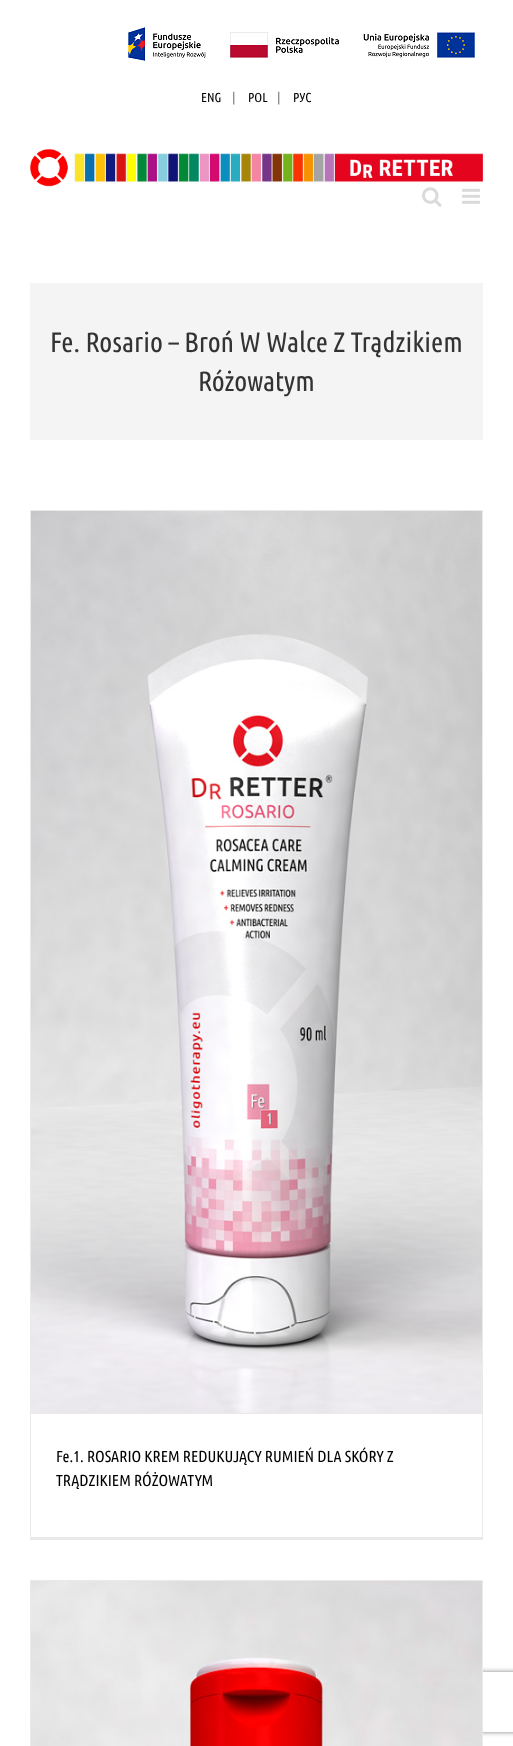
<svg xmlns="http://www.w3.org/2000/svg" width="513" height="1746">
	<defs>
		<clipPath id="clip1"><path d="M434 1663H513V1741H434ZM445 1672H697C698 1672 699 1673 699 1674V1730C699 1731 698 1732 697 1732H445C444 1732 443 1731 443 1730V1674C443 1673 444 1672 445 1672Z" clip-rule="evenodd" /></clipPath>
	</defs>
	<rect width="100%" height="100%" fill="#FFFFFF" />
	<image x="128" y="27" width="347" height="34" href="assets/img1.png" />
	<text x="201" y="102" font-family="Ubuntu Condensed" font-size="13" fill="#000000">ENG</text>
	<text x="232" y="102" font-family="Ubuntu Condensed" font-size="13" fill="#747474">|</text>
	<text x="248" y="102" font-family="Ubuntu Condensed" font-size="13" fill="#000000">POL</text>
	<text x="277" y="102" font-family="Ubuntu Condensed" font-size="13" fill="#747474">|</text>
	<text x="293" y="102" font-family="Ubuntu Condensed" font-size="13" fill="#000000">РУС</text>
	<image x="30" y="148" width="453" height="39" href="assets/img2.png" />
	<image x="422" y="187" width="20" height="20" href="assets/img3.png" />
	<image x="462" y="188" width="18" height="16" href="assets/img4.png" />
	<rect x="30" y="283" width="453" height="157" fill="#F4F4F4" />
	<g font-family="Ubuntu Condensed" font-size="28" fill="#333333">
		<text x="50" y="352">Fe. Rosario – Broń W Walce Z Trądzikiem</text>
		<text x="198" y="391">Różowatym</text>
	</g>
	<rect x="30" y="510" width="453" height="1" fill="#EBEAEA" />
	<rect x="482" y="510" width="1" height="1030" fill="#EBEAEA" />
	<rect x="30" y="1537" width="453" height="3" fill="#EBEAEA" />
	<rect x="30" y="510" width="1" height="1030" fill="#EBEAEA" />
	<rect x="31" y="1413" width="451" height="1" fill="#EBEAEA" />
	<image x="31" y="511" width="451" height="902" href="assets/img5.png" />
	<g font-family="Ubuntu Condensed" font-size="16" fill="#000000">
		<text x="56" y="1462">Fe.1. ROSARIO KREM REDUKUJĄCY RUMIEŃ DLA SKÓRY Z</text>
		<text x="56" y="1486">TRĄDZIKIEM RÓŻOWATYM</text>
	</g>
	<rect x="30" y="1580" width="453" height="1" fill="#EBEAEA" />
	<g clip-path="url(#clip1)">
		<rect x="443" y="1672" width="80" height="60" rx="2" fill="#808080" filter="blur(2.5px)" />
	</g>
	<rect x="482" y="1580" width="1" height="166" fill="#EBEAEA" />
	<rect x="30" y="1580" width="1" height="166" fill="#EBEAEA" />
	<image x="31" y="1581" width="451" height="165" href="assets/img6.png" />
</svg>
